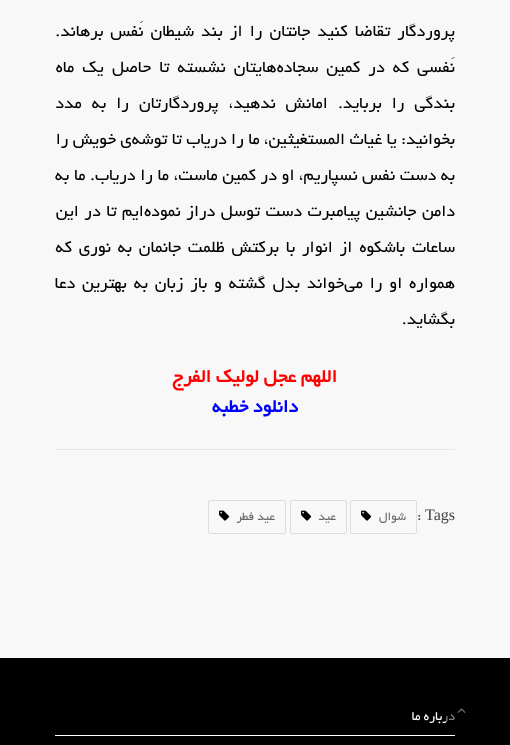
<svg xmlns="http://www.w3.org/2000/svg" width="510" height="745">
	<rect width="100%" height="100%" fill="#F8F8F8" />
	<rect x="0" y="658" width="510" height="87" fill="#000000" />
	<text x="455" y="720" font-family="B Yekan" font-size="14" direction="rtl" fill="#FFFFFF">درباره ما</text>
	<rect x="446" y="695" width="32" height="32" rx="3" fill="#000000" fill-opacity="0.5" />
	<image x="457" y="708" width="9" height="5" href="assets/img1.png" />
	<rect x="55" y="449" width="400" height="1" fill="#E6E6E6" />
	<g font-family="B Yekan" font-size="18" direction="rtl" fill="#000000">
		<text x="455" y="36" word-spacing="3">پروردگار تقاضا کنید جانتان را از بند شیطان نَفس برهاند.</text>
		<text x="455" y="72" word-spacing="4">نَفسی که در کمین سجاده‌هایتان نشسته تا حاصل یک ماه</text>
		<text x="455" y="108" word-spacing="6">بندگی را برباید. امانش ندهید، پروردگارتان را به مدد</text>
		<text x="455" y="144" word-spacing="0.25">بخوانید: یا غیاث المستغیثین، ما را دریاب تا توشه‌ی خویش را</text>
		<text x="455" y="180" word-spacing="0.5">به دست نفس نسپاریم، او در کمین ماست، ما را دریاب. ما به</text>
		<text x="455" y="216" word-spacing="1.5">دامن جانشین پیامبرت دست توسل دراز نموده‌ایم تا در این</text>
		<text x="455" y="252" word-spacing="2.75">ساعات باشکوه از انوار با برکتش ظلمت جانمان به نوری که</text>
		<text x="455" y="288" word-spacing="2.75">همواره او را می‌خواند بدل گشته و باز زبان به بهترین دعا</text>
		<text x="455" y="324">بگشاید.</text>
	</g>
	<text x="337" y="382" font-family="B Yekan" font-size="20" font-weight="700" direction="rtl" fill="#FF0000">اللهم عجل لولیک الفرج</text>
	<text x="298" y="412" font-family="B Yekan" font-size="20" font-weight="700" direction="rtl" fill="#0000FF">دانلود خطبه</text>
	<text x="425" y="520" font-family="Liberation Serif" font-size="16" fill="#444444">Tags</text>
	<text x="417" y="520" font-family="B Yekan" font-size="16" fill="#444444">:</text>
	<rect x="350.5" y="500.5" width="66" height="33" rx="1.5" fill="none" stroke="#DDDDDD" />
	<text x="406" y="520" font-family="B Yekan" font-size="13" direction="rtl" fill="#696969">شوال</text>
	<image x="361" y="510" width="11" height="11" href="assets/img2.png" />
	<rect x="290.5" y="500.5" width="56" height="33" rx="1.5" fill="none" stroke="#DDDDDD" />
	<text x="336" y="520" font-family="B Yekan" font-size="13" direction="rtl" fill="#696969">عید</text>
	<image x="301" y="510" width="11" height="11" href="assets/img2.png" />
	<rect x="208.5" y="500.5" width="77" height="33" rx="1.5" fill="none" stroke="#DDDDDD" />
	<text x="275" y="520" font-family="B Yekan" font-size="13" direction="rtl" fill="#696969">عید فطر</text>
	<image x="219" y="510" width="11" height="11" href="assets/img2.png" />
	<rect x="55" y="735" width="400" height="1" fill="#FFFFFF" />
</svg>
